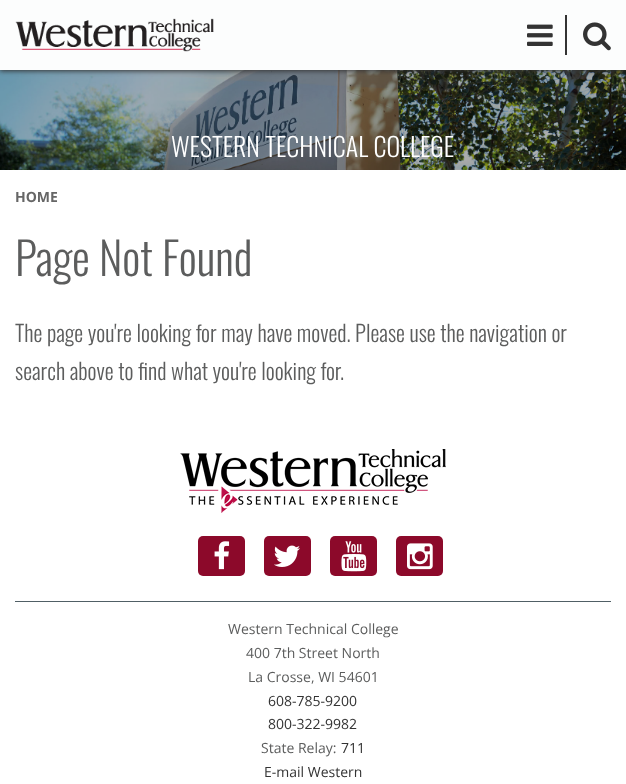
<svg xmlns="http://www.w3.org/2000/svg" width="626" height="784">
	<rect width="100%" height="100%" fill="#FFFFFF" />
	<image x="0" y="70" width="626" height="100" href="assets/img4.png" />
	<rect x="0" y="1" width="626" height="70" fill="#333333" filter="blur(2.5px)" />
	<rect x="0" y="0" width="626" height="70" fill="#FCFDFD" />
	<image x="15" y="18" width="199" height="34" href="assets/img1.png" />
	<rect x="565" y="15" width="2" height="40" fill="#333333" />
	<image x="527" y="24" width="26" height="22" href="assets/img2.png" />
	<image x="583" y="22" width="28" height="29" href="assets/img3.png" />
	<text x="171" y="157" font-family="Oswald" font-size="26" font-weight="300" fill="#FFFFFF">WESTERN TECHNICAL COLLEGE</text>
	<text x="15" y="202" font-family="Open Sans" font-size="14" font-weight="700" fill="#666666">HOME</text>
	<text x="15" y="276" font-family="Oswald" font-size="45" font-weight="300" fill="#5C5D5D">Page Not Found</text>
	<g font-family="Oswald" font-size="22.4" font-weight="300" fill="#5C5D5D">
		<text x="15" y="342">The page you're looking for may have moved. Please use the navigation or</text>
		<text x="15" y="380">search above to find what you're looking for.</text>
	</g>
	<rect x="15" y="601" width="596" height="1" fill="#505F65" />
	<image x="180" y="449" width="266" height="64" href="assets/img5.png" />
	<rect x="198" y="536" width="47" height="40" rx="5" fill="#8C092A" />
	<image x="214" y="541" width="16" height="29" href="assets/img6.png" />
	<rect x="264" y="536" width="47" height="40" rx="5" fill="#8C092A" />
	<image x="274" y="545" width="26" height="22" href="assets/img7.png" />
	<rect x="330" y="536" width="47" height="40" rx="5" fill="#8C092A" />
	<image x="341" y="541" width="26" height="31" href="assets/img8.png" />
	<rect x="396" y="536" width="47" height="40" rx="5" fill="#8C092A" />
	<image x="407" y="543" width="26" height="27" href="assets/img9.png" />
	<g font-family="Open Sans" font-size="14" fill="#5C5D5D">
		<text x="228" y="634">Western Technical College</text>
		<text x="246" y="658">400 7th Street North</text>
		<text x="248" y="682">La Crosse, WI 54601</text>
	</g>
	<g font-family="Open Sans" font-size="14" fill="#333333">
		<text x="268" y="706">608-785-9200</text>
		<text x="268" y="729">800-322-9982</text>
	</g>
	<text x="261" y="753" font-family="Open Sans" font-size="14" fill="#5C5D5D">State Relay:</text>
	<g font-family="Open Sans" font-size="14" fill="#333333">
		<text x="341" y="753">711</text>
		<text x="264" y="777">E-mail Western</text>
	</g>
</svg>
